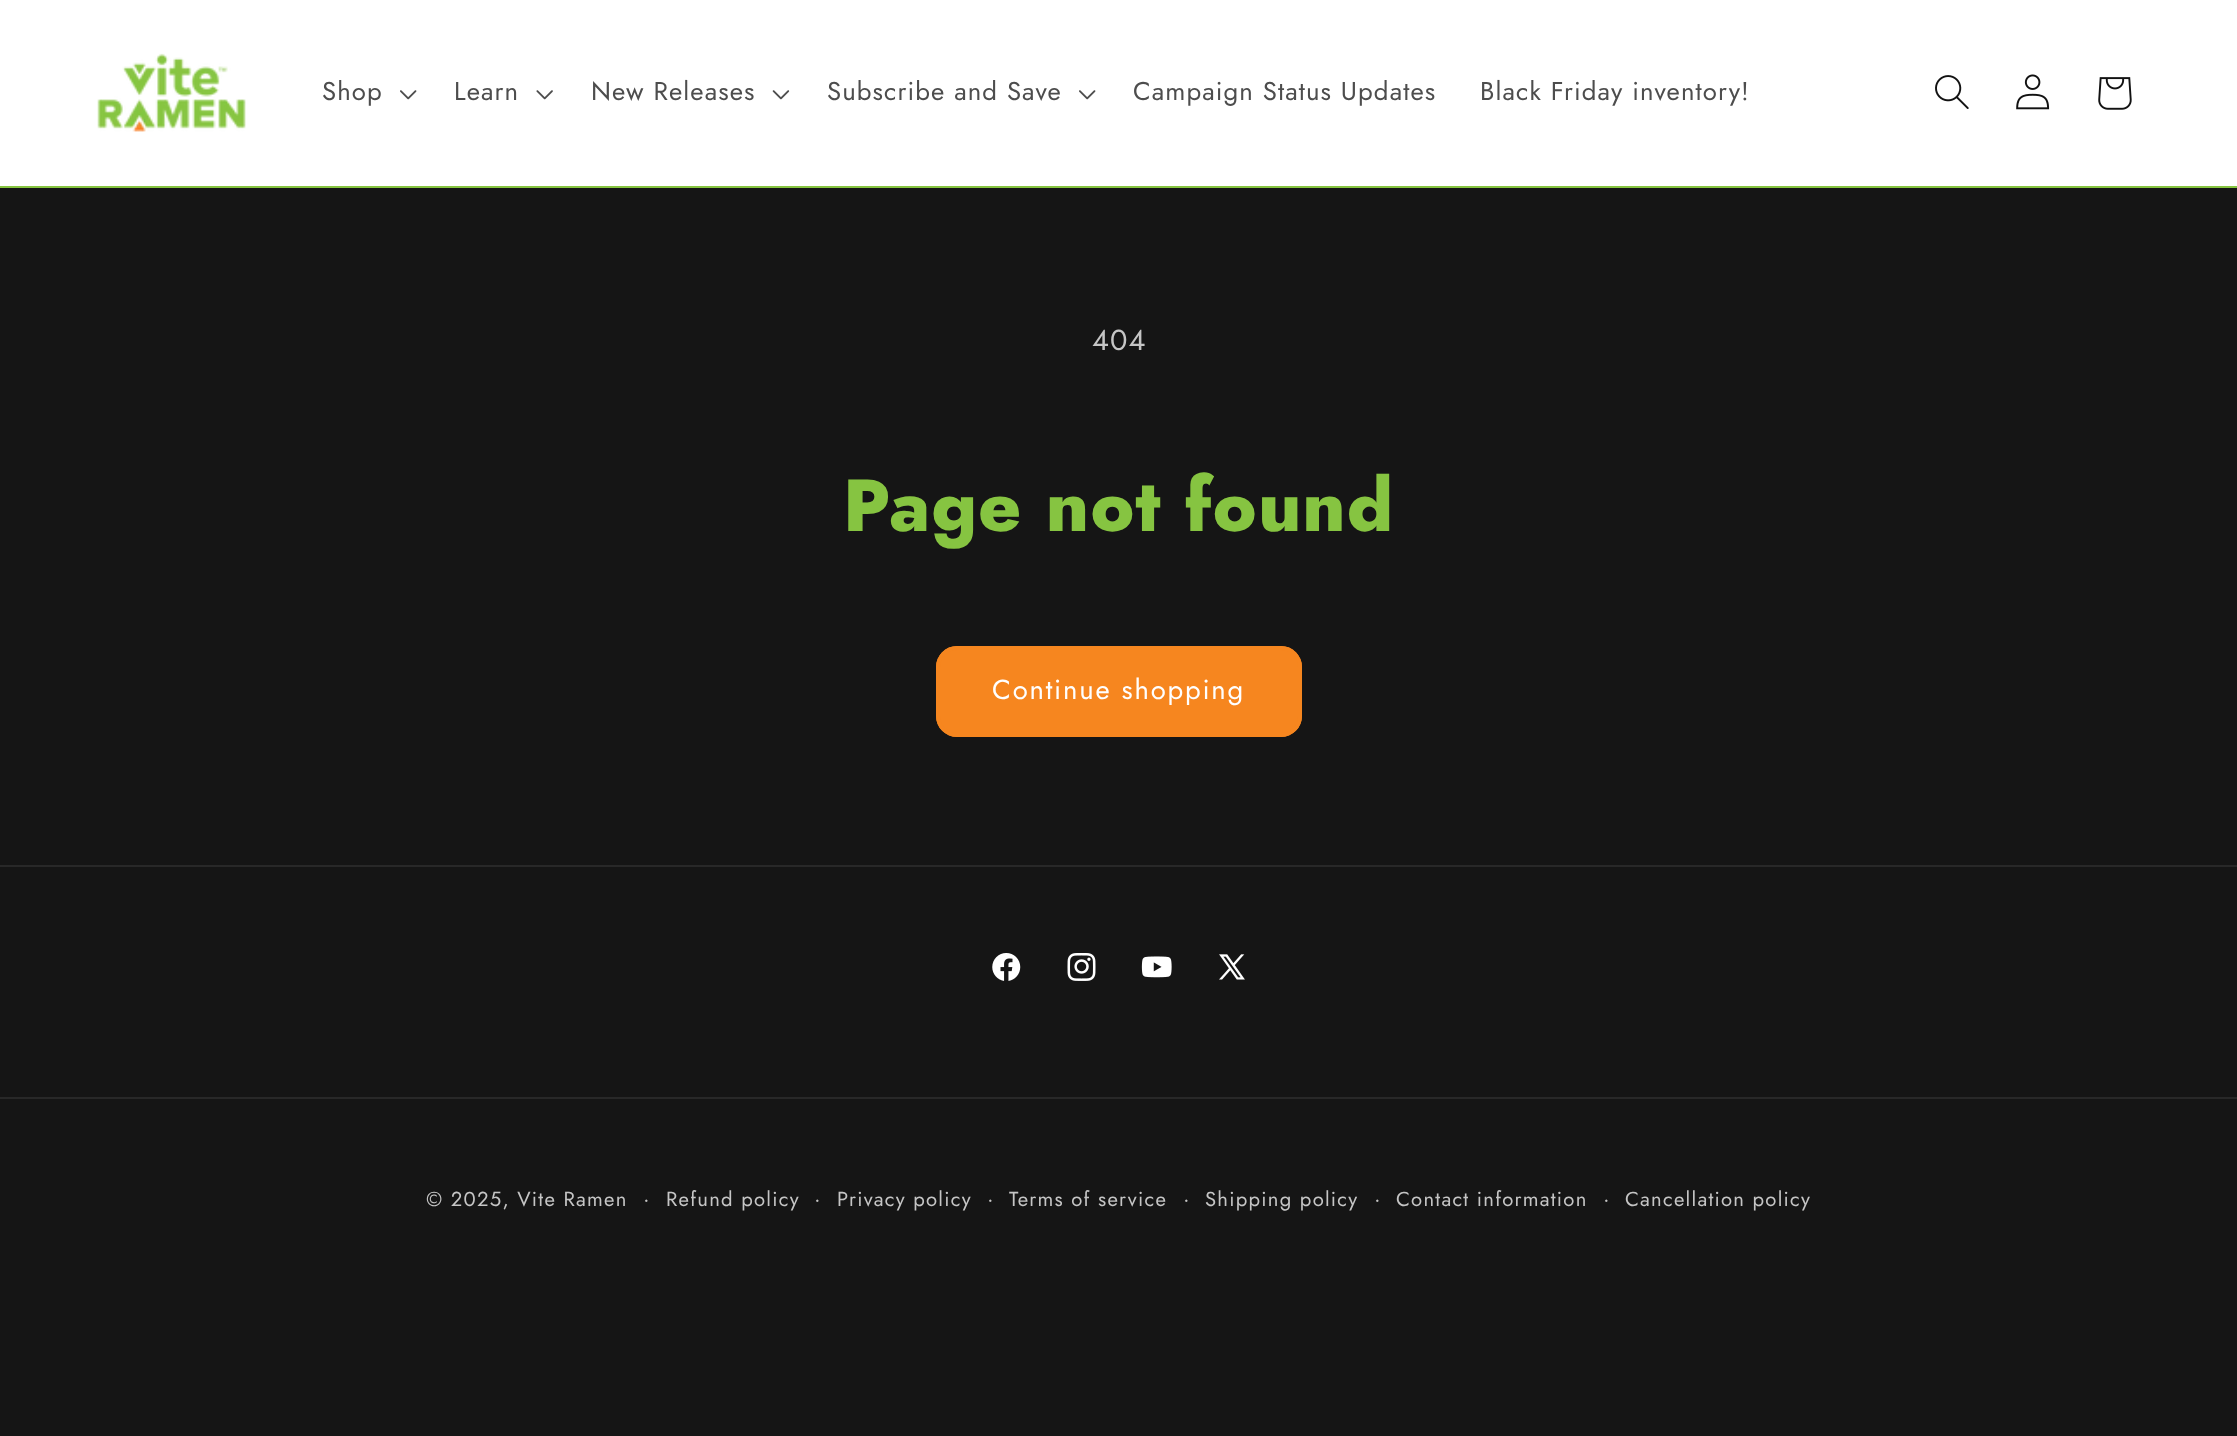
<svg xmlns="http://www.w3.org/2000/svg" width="2237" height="1436">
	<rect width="100%" height="100%" fill="#151515" />
	<rect x="0" y="0" width="2237" height="186" fill="#FFFFFF" />
	<rect x="0" y="186" width="2237" height="2" fill="#86C440" />
	<image x="97" y="53" width="149" height="79" href="assets/img1.png" />
	<text x="322" y="100" font-family="Jost" font-size="25.75" letter-spacing="1.1" fill="#4D4D4D">Shop</text>
	<image x="400" y="90" width="17" height="10" href="assets/img2.png" />
	<text x="454" y="100" font-family="Jost" font-size="25.75" letter-spacing="1.1" fill="#4D4D4D">Learn</text>
	<image x="536" y="90" width="17" height="10" href="assets/img3.png" />
	<text x="591" y="100" font-family="Jost" font-size="25.75" letter-spacing="1.1" fill="#4D4D4D">New Releases</text>
	<image x="772" y="90" width="18" height="10" href="assets/img4.png" />
	<text x="827" y="100" font-family="Jost" font-size="25.75" letter-spacing="1.1" fill="#4D4D4D">Subscribe and Save</text>
	<image x="1079" y="90" width="17" height="10" href="assets/img2.png" />
	<g font-family="Jost" font-size="25.75" letter-spacing="1.1" fill="#4D4D4D">
		<text x="1133" y="100">Campaign Status Updates</text>
		<text x="1480" y="100">Black Friday inventory!</text>
	</g>
	<image x="1935" y="75" width="34" height="34" href="assets/img5.png" />
	<image x="2016" y="74" width="34" height="36" href="assets/img6.png" />
	<image x="2098" y="77" width="34" height="33" href="assets/img7.png" />
	<text x="1092" y="350" font-family="Jost" font-size="29" letter-spacing="1.1" fill="#C5C5C5">404</text>
	<text x="843" y="531" font-family="Jost" font-size="73.5" font-weight="800" letter-spacing="1.1" fill="#86C441">Page not found</text>
	<rect x="936" y="646" width="366" height="91" rx="21" fill="#F6861F" />
	<rect x="938" y="648" width="362" height="87" rx="19" fill="none" stroke="#F6861F" stroke-width="4" />
	<text x="992" y="699" font-family="Jost" font-size="27.5" letter-spacing="1.8" fill="#FFFFFF">Continue shopping</text>
	<rect x="0" y="865" width="2237" height="2" fill="#282828" />
	<image x="992" y="953" width="29" height="28" href="assets/img8.png" />
	<image x="1067" y="953" width="29" height="28" href="assets/img9.png" />
	<image x="1141" y="956" width="31" height="22" href="assets/img10.png" />
	<image x="1219" y="954" width="26" height="26" href="assets/img11.png" />
	<rect x="0" y="1097" width="2237" height="2" fill="#282828" />
	<text x="426" y="1206" font-family="Jost" font-size="20.25" letter-spacing="1.25" fill="#C5C5C5">© 2025, Vite Ramen</text>
	<text x="643" y="1206" font-family="Jost" font-size="22" letter-spacing="1.25" fill="#C5C5C5">·</text>
	<text x="666" y="1206" font-family="Jost" font-size="20.25" letter-spacing="1.25" fill="#C5C5C5">Refund policy</text>
	<text x="814" y="1206" font-family="Jost" font-size="22" letter-spacing="1.25" fill="#C5C5C5">·</text>
	<text x="837" y="1206" font-family="Jost" font-size="20.25" letter-spacing="1.25" fill="#C5C5C5">Privacy policy</text>
	<text x="987" y="1206" font-family="Jost" font-size="22" letter-spacing="1.25" fill="#C5C5C5">·</text>
	<text x="1009" y="1206" font-family="Jost" font-size="20.25" letter-spacing="1.25" fill="#C5C5C5">Terms of service</text>
	<text x="1183" y="1206" font-family="Jost" font-size="22" letter-spacing="1.25" fill="#C5C5C5">·</text>
	<text x="1205" y="1206" font-family="Jost" font-size="20.25" letter-spacing="1.25" fill="#C5C5C5">Shipping policy</text>
	<text x="1374" y="1206" font-family="Jost" font-size="22" letter-spacing="1.25" fill="#C5C5C5">·</text>
	<text x="1396" y="1206" font-family="Jost" font-size="20.25" letter-spacing="1.25" fill="#C5C5C5">Contact information</text>
	<text x="1603" y="1206" font-family="Jost" font-size="22" letter-spacing="1.25" fill="#C5C5C5">·</text>
	<text x="1625" y="1206" font-family="Jost" font-size="20.25" letter-spacing="1.25" fill="#C5C5C5">Cancellation policy</text>
</svg>
